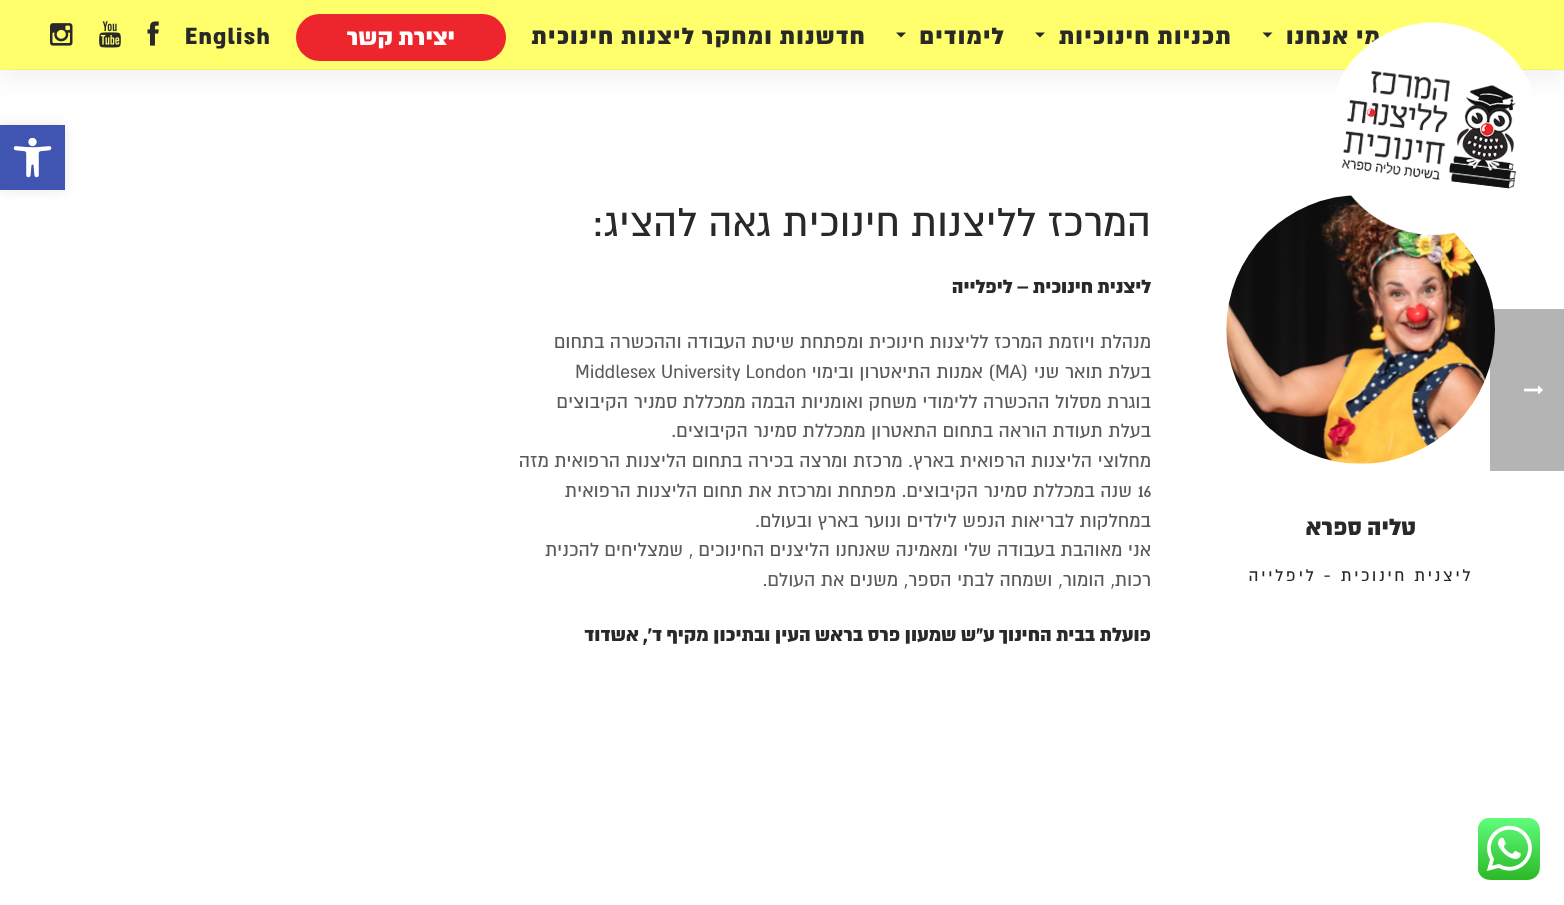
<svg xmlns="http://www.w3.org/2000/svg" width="1564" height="905">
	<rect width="100%" height="100%" fill="#FFFFFF" />
	<rect x="0" y="69" width="1564" height="1" fill="#FFFF78" />
	<rect x="0" y="10" width="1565" height="69" fill="#080808" fill-opacity="0.06" filter="blur(12.5px)" />
	<rect x="0" y="0" width="1564" height="69" fill="#FEFF6A" />
	<text x="1381" y="44" font-family="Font" font-size="26.25" font-weight="900" letter-spacing="1.25" direction="rtl" fill="#292929">מי אנחנו</text>
	<image x="1226" y="195" width="269" height="269" href="assets/img5.png" />
	<image x="1337" y="21" width="194" height="215" href="assets/img1.png" />
	<path d="M1262.5 32.5L1267.5 37.5L1272.5 32.5Z" fill="#292929" />
	<text x="1232" y="44" font-family="Font" font-size="26.25" font-weight="900" letter-spacing="1.25" direction="rtl" fill="#292929">תכניות חינוכיות</text>
	<path d="M1035 32.5L1040 37.5L1045 32.5Z" fill="#292929" />
	<text x="1005" y="44" font-family="Font" font-size="26.25" font-weight="900" letter-spacing="1.25" direction="rtl" fill="#292929">לימודים</text>
	<path d="M896 32.5L901 37.5L906 32.5Z" fill="#292929" />
	<text x="866" y="44" font-family="Font" font-size="26.25" font-weight="900" letter-spacing="1.25" direction="rtl" fill="#292929">חדשנות ומחקר ליצנות חינוכית</text>
	<rect x="296" y="14" width="210" height="47" rx="23.5" fill="#ED262E" />
	<text x="455" y="45" font-family="Font" font-size="26.25" font-weight="900" direction="rtl" fill="#FFFFFF">יצירת קשר</text>
	<text x="185" y="44" font-family="Font" font-size="26.25" font-weight="900" letter-spacing="1.25" fill="#292929">English</text>
	<image x="147" y="21" width="12" height="25" href="assets/img2.png" />
	<image x="99" y="21" width="22" height="27" href="assets/img3.png" />
	<image x="50" y="23" width="23" height="23" href="assets/img4.png" />
	<text x="1416" y="535" font-family="Font" font-size="26.25" font-weight="900" direction="rtl" fill="#292929">טליה ספרא</text>
	<text x="1473" y="581" font-family="Font" font-size="18.75" letter-spacing="2.5" direction="rtl" fill="#292929">ליצנית חינוכית - ליפלייה</text>
	<text x="1151" y="236" font-family="Font" font-size="45" direction="rtl" fill="#292929">המרכז לליצנות חינוכית גאה להציג:</text>
	<text x="1151" y="293" font-family="Font" font-size="21.25" font-weight="900" direction="rtl" fill="#292929">ליצנית חינוכית – ליפלייה</text>
	<text x="1151" y="348" font-family="Font" font-size="21.25" direction="rtl" fill="#5A5A5A">מנהלת ויוזמת המרכז לליצנות חינוכית ומפתחת שיטת העבודה וההכשרה בתחום</text>
	<text x="995" y="378" font-family="Font" font-size="21.25" fill="#5A5A5A">MA</text>
	<g font-family="Font" font-size="21.25" direction="rtl" fill="#5A5A5A">
		<text x="1151" y="378">בעלת תואר שני (</text>
		<text x="995" y="378">) אמנות התיאטרון ובימוי</text>
	</g>
	<text x="575" y="378" font-family="Font" font-size="21.25" fill="#5A5A5A">Middlesex University London</text>
	<g font-family="Font" font-size="21.25" direction="rtl" fill="#5A5A5A">
		<text x="1151" y="408">בוגרת מסלול ההכשרה ללימודי משחק ואומניות הבמה ממכללת סמניר הקיבוצים</text>
		<text x="1151" y="437">בעלת תעודת הוראה בתחום התאטרון ממכללת סמינר הקיבוצים.</text>
		<text x="1151" y="467">מחלוצי הליצנות הרפואית בארץ. מרכזת ומרצה בכירה בתחום הליצנות הרפואית מזה</text>
	</g>
	<text x="1138" y="497" font-family="Font" font-size="21.25" fill="#5A5A5A">16</text>
	<g font-family="Font" font-size="21.25" direction="rtl" fill="#5A5A5A">
		<text x="1132" y="497">שנה במכללת סמינר הקיבוצים. מפתחת ומרכזת את תחום הליצנות הרפואית</text>
		<text x="1151" y="527">במחלקות לבריאות הנפש לילדים ונוער בארץ ובעולם.</text>
		<text x="1151" y="556">אני מאוהבת בעבודה שלי ומאמינה שאנחנו הליצנים החינוכים , שמצליחים להכנית</text>
		<text x="1151" y="586">רכות, הומור, ושמחה לבתי הספר, משנים את העולם.</text>
	</g>
	<text x="1151" y="641" font-family="Font" font-size="21.25" font-weight="900" direction="rtl" fill="#292929">פועלת בבית החינוך ע"ש שמעון פרס בראש העין ובתיכון מקיף ד', אשדוד</text>
	<rect x="0" y="125" width="65" height="65" fill="#000000" fill-opacity="0.1" filter="blur(6px)" />
	<rect x="0" y="125" width="65" height="65" fill="#4054B2" />
	<image x="13" y="138" width="39" height="40" href="assets/img6.png" />
	<rect x="1490" y="309" width="74" height="162" fill="#080808" fill-opacity="0.3" />
	<image x="1524" y="385" width="19" height="10" href="assets/img7.png" />
	<rect x="745" y="573" width="75" height="60" fill="#FFFFFF" fill-opacity="0.03" />
	<image x="1478" y="818" width="62" height="62" href="assets/img8.png" />
</svg>
